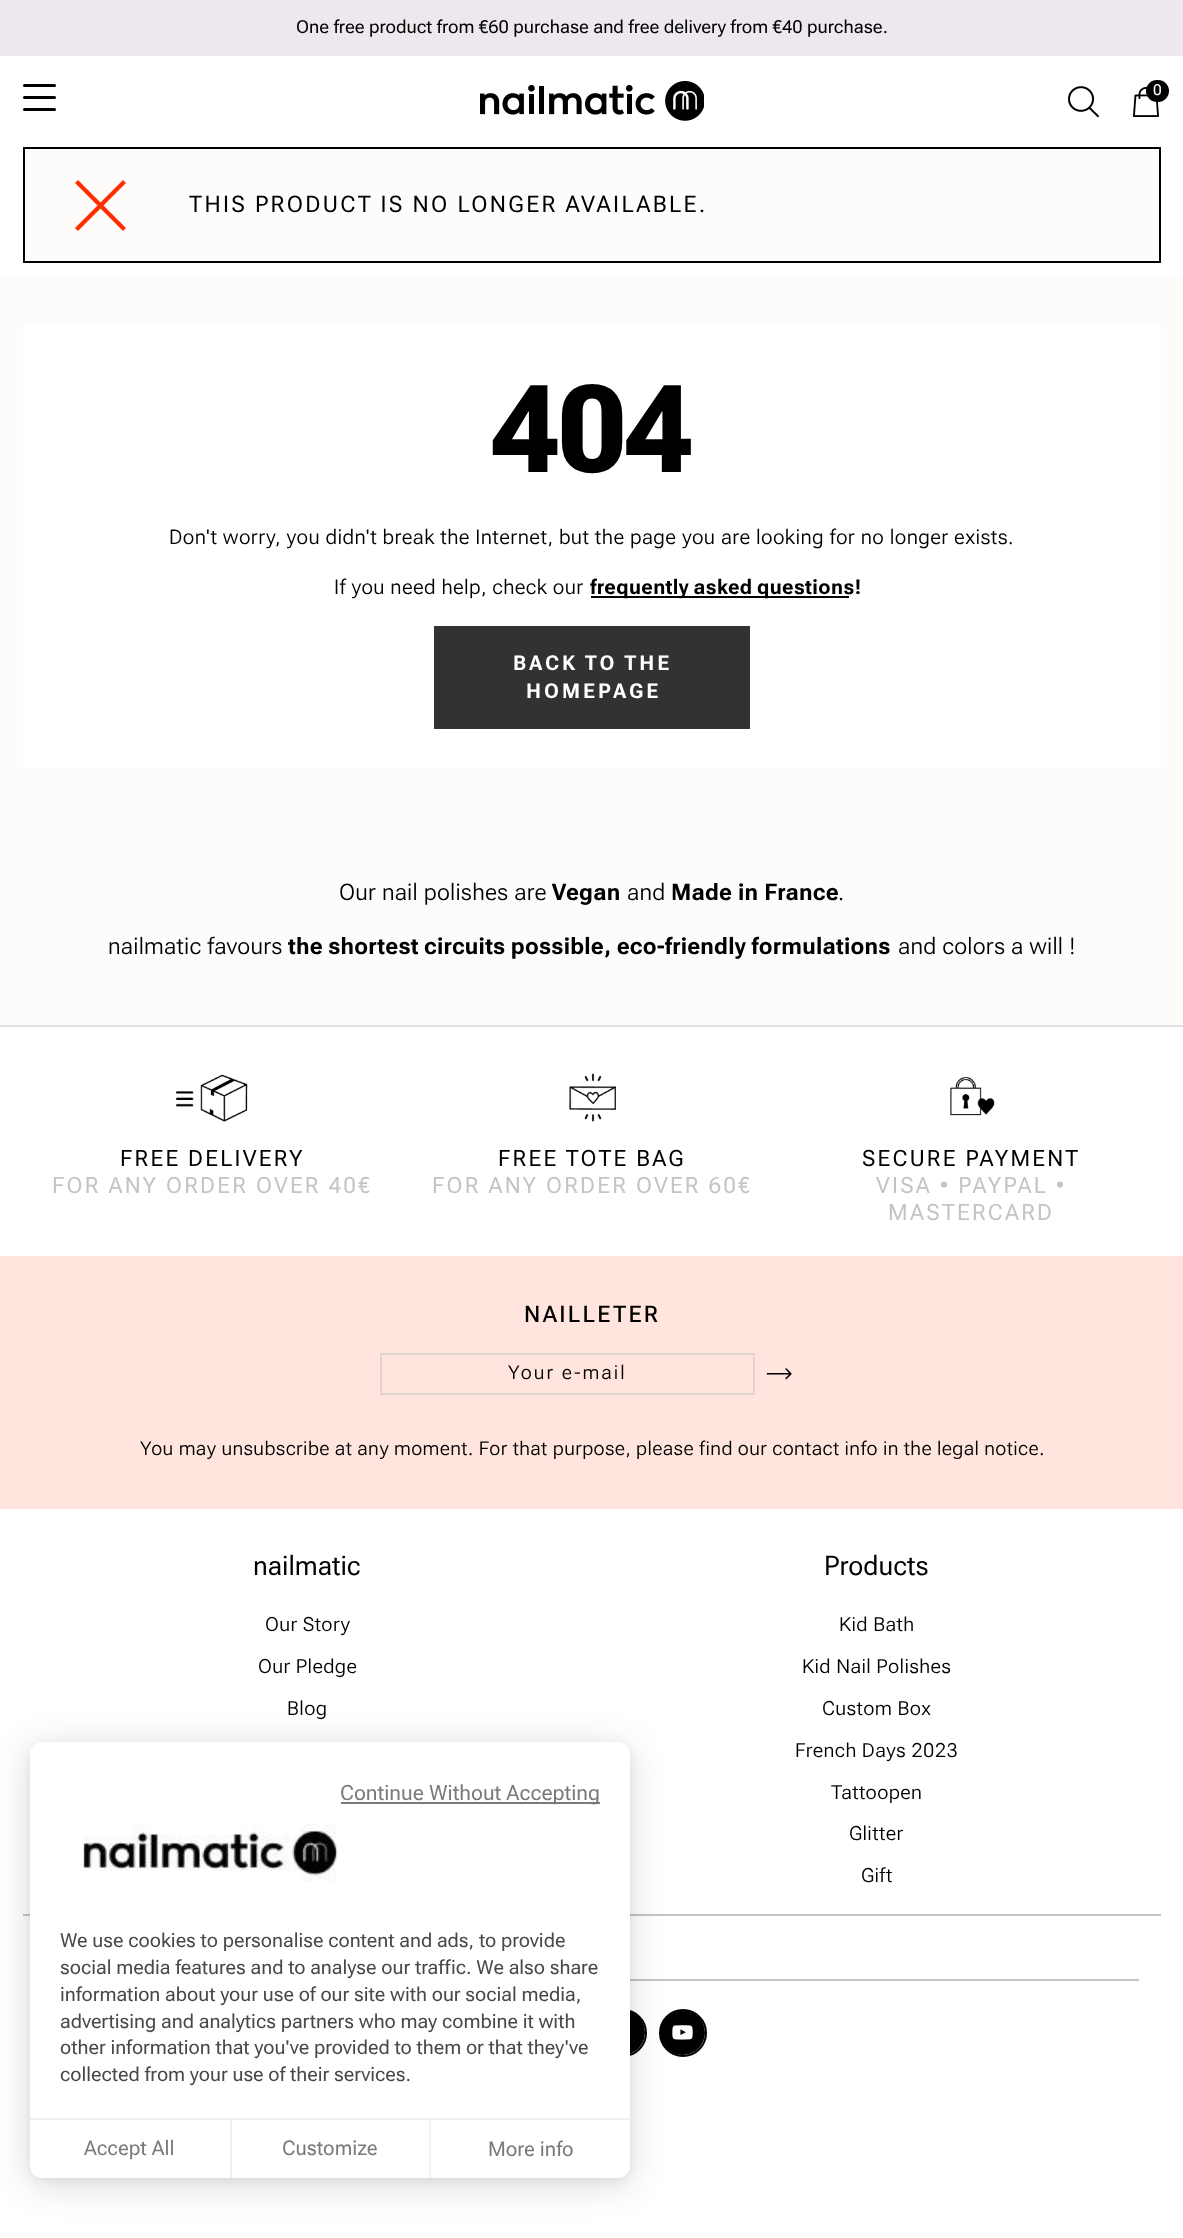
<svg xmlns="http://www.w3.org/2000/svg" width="1183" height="2238">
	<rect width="100%" height="100%" fill="#FFFFFF" />
	<rect x="0" y="0" width="1183" height="56" fill="#EDE8EE" />
	<text x="296" y="33" font-family="'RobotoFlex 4'" font-size="18" fill="#000000">One free product from €60 purchase and free delivery from €40 purchase.</text>
	<rect x="23" y="96" width="33" height="3" rx="1.5" fill="#000000" />
	<rect x="23" y="84" width="33" height="3" rx="1.5" fill="#000000" />
	<rect x="23" y="108" width="33" height="3" rx="1.5" fill="#000000" />
	<image x="480" y="81" width="224" height="40" href="assets/img1.png" />
	<image x="1068" y="86" width="31" height="32" href="assets/img2.png" />
	<image x="1133" y="87" width="26" height="30" href="assets/img3.png" />
	<rect x="1146" y="80" width="23" height="22" rx="11" fill="#000000" />
	<text x="1153" y="95" font-family="'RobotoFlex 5'" font-size="15" fill="#FFFFFF">0</text>
	<rect x="24" y="148" width="1136" height="114" fill="#FDFCFA" stroke="#000000" stroke-width="2" />
	<path d="M123 231L75 183L78 180L126 228Z" fill="#FF2E00" fill-rule="evenodd" />
	<path d="M75 228L123 180L126 183L78 231Z" fill="#FF2E00" fill-rule="evenodd" />
	<text x="189" y="212" font-family="'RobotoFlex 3'" font-size="22.9" letter-spacing="2.3" fill="#000000">THIS PRODUCT IS NO LONGER AVAILABLE.</text>
	<rect x="0" y="276" width="1183" height="749" fill="#FDFCFA" />
	<rect x="23" y="326" width="1138" height="441" fill="#FFFFFF" />
	<text x="492" y="472" font-family="'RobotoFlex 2'" font-size="122" font-weight="700" fill="#000000">404</text>
	<g font-family="'RobotoFlex 4'" font-size="20.35" font-weight="300" letter-spacing="0.4" fill="#000000">
		<text x="169" y="544" word-spacing="0.1">Don't worry, you didn't break the Internet, but the page you are looking for no longer exists.</text>
		<text x="334" y="594">If you need help, check our</text>
	</g>
	<rect x="591" y="596" width="258" height="2" fill="#000000" />
	<text x="590" y="594" word-spacing="-1" font-family="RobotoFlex" font-size="20.35" font-weight="700" letter-spacing="0.4" fill="#000000">frequently asked questions!</text>
	<rect x="434" y="626" width="316" height="103" fill="#323232" />
	<g font-family="RobotoFlex" font-size="20.35" font-weight="700" letter-spacing="3" fill="#FFFFFF">
		<text x="513" y="670" word-spacing="-1">BACK TO THE</text>
		<text x="526" y="698">HOMEPAGE</text>
	</g>
	<text x="339" y="900" font-family="RobotoFlex" font-size="22.9" font-weight="300" letter-spacing="0.23" fill="#000000">Our nail polishes are</text>
	<text x="552" y="900" font-family="RobotoFlex" font-size="22.9" font-weight="700" letter-spacing="0.23" fill="#000000">Vegan</text>
	<text x="627" y="900" font-family="RobotoFlex" font-size="22.9" font-weight="300" letter-spacing="0.23" fill="#000000">and</text>
	<text x="671" y="900" font-family="RobotoFlex" font-size="22.9" font-weight="700" letter-spacing="0.23" fill="#000000">Made in France</text>
	<g font-family="RobotoFlex" font-size="22.9" font-weight="300" letter-spacing="0.23" fill="#000000">
		<text x="838" y="900">.</text>
		<text x="108" y="954">nailmatic favours</text>
	</g>
	<text x="288" y="954" word-spacing="-0.5" font-family="RobotoFlex" font-size="22.9" font-weight="700" letter-spacing="0.23" fill="#000000">the shortest circuits possible, eco-friendly formulations</text>
	<text x="898" y="954" font-family="RobotoFlex" font-size="22.9" font-weight="300" letter-spacing="0.23" fill="#000000">and colors a will !</text>
	<rect x="0" y="1025" width="1183" height="2" fill="#E2E2E2" />
	<image x="175" y="1074" width="73" height="48" href="assets/img4.png" />
	<text x="120" y="1166" font-family="RobotoFlex" font-size="22.5" letter-spacing="2.25" fill="#000000">FREE DELIVERY</text>
	<text x="52" y="1193" font-family="RobotoFlex" font-size="22.5" letter-spacing="2.25" fill="#C4C4C4">FOR ANY ORDER OVER 40€</text>
	<image x="569" y="1073" width="47" height="49" href="assets/img5.png" />
	<text x="498" y="1166" font-family="RobotoFlex" font-size="22.5" letter-spacing="2.25" fill="#000000">FREE TOTE BAG</text>
	<text x="432" y="1193" font-family="RobotoFlex" font-size="22.5" letter-spacing="2.25" fill="#C4C4C4">FOR ANY ORDER OVER 60€</text>
	<image x="950" y="1077" width="45" height="39" href="assets/img6.png" />
	<text x="862" y="1166" font-family="RobotoFlex" font-size="22.5" letter-spacing="2.25" fill="#000000">SECURE PAYMENT</text>
	<g font-family="RobotoFlex" font-size="22.5" letter-spacing="2.25" fill="#C4C4C4">
		<text x="876" y="1193">VISA • PAYPAL •</text>
		<text x="888" y="1220">MASTERCARD</text>
	</g>
	<rect x="0" y="1256" width="1183" height="253" fill="#FFE5DD" />
	<text x="524" y="1322" font-family="RobotoFlex" font-size="22.9" font-weight="500" letter-spacing="2.3" fill="#000000">NAILLETER</text>
	<rect x="381" y="1354" width="373" height="40" fill="none" stroke="#E2D5D1" stroke-width="2" />
	<text x="508" y="1379" font-family="'RobotoFlex 2'" font-size="19.1" font-weight="300" letter-spacing="2" fill="#000000">Your e-mail</text>
	<image x="766" y="1368" width="26" height="12" href="assets/img7.png" />
	<text x="140" y="1455" font-family="'RobotoFlex 2'" font-size="19.1" font-weight="300" letter-spacing="0.38" fill="#000000">You may unsubscribe at any moment. For that purpose, please find our contact info in the legal notice.</text>
	<rect x="23" y="1914" width="7" height="2" fill="#C4C4C4" />
	<text x="253" y="1575" font-family="'RobotoFlex 2'" font-size="27" fill="#000000">nailmatic</text>
	<g font-family="'RobotoFlex 3'" font-size="19.5" font-weight="300" letter-spacing="0.4" fill="#000000">
		<text x="265" y="1631">Our Story</text>
		<text x="258" y="1673">Our Pledge</text>
		<text x="287" y="1715">Blog</text>
	</g>
	<rect x="630" y="1914" width="531" height="2" fill="#C4C4C4" />
	<text x="824" y="1575" font-family="'RobotoFlex 2'" font-size="27" fill="#000000">Products</text>
	<g font-family="'RobotoFlex 3'" font-size="19.5" font-weight="300" letter-spacing="0.4" fill="#000000">
		<text x="839" y="1631">Kid Bath</text>
		<text x="802" y="1673">Kid Nail Polishes</text>
		<text x="822" y="1715">Custom Box</text>
		<text x="795" y="1757">French Days 2023</text>
		<text x="831" y="1799">Tattoopen</text>
		<text x="849" y="1840">Glitter</text>
		<text x="861" y="1882">Gift</text>
	</g>
	<rect x="630" y="1979" width="509" height="2" fill="#C4C4C4" />
	<circle cx="623" cy="2033" r="23" fill="none" stroke="#000000" stroke-width="2" />
	<circle cx="622.5" cy="2032.5" r="22.5" fill="#000000" />
	<circle cx="683" cy="2033" r="23" fill="none" stroke="#000000" stroke-width="2" />
	<circle cx="682.5" cy="2032.5" r="22.5" fill="#000000" />
	<image x="672" y="2025" width="21" height="15" href="assets/img8.png" />
	<rect x="30" y="1745" width="600" height="436" rx="12" fill="#000000" fill-opacity="0.05" filter="blur(4.5px)" />
	<rect x="30" y="1748" width="600" height="436" rx="12" fill="#000000" fill-opacity="0.15" filter="blur(18px)" />
	<rect x="30" y="1742" width="600" height="436" rx="12" fill="#FFFFFF" />
	<rect x="341" y="1802" width="259" height="2" fill="#7A7A7A" />
	<text x="340" y="1800" font-family="'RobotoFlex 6'" font-size="21" fill="#7A7A7A">Continue Without Accepting</text>
	<image x="83" y="1822" width="256" height="60" href="assets/img9.png" />
	<g font-family="'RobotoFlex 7'" font-size="19.5" fill="#484848">
		<text x="60" y="1947">We use cookies to personalise content and ads, to provide</text>
		<text x="60" y="1974">social media features and to analyse our traffic. We also share</text>
		<text x="60" y="2001">information about your use of our site with our social media,</text>
		<text x="60" y="2028">advertising and analytics partners who may combine it with</text>
		<text x="60" y="2054">other information that you've provided to them or that they've</text>
		<text x="60" y="2081">collected from your use of their services.</text>
	</g>
	<rect x="30" y="2118" width="600" height="2" fill="#F0F0F0" />
	<rect x="230" y="2120" width="2" height="58" fill="#F0F0F0" />
	<text x="84" y="2155" font-family="'RobotoFlex 6'" font-size="20.35" fill="#7A7A7A">Accept All</text>
	<rect x="429" y="2120" width="2" height="58" fill="#F0F0F0" />
	<g font-family="'RobotoFlex 6'" font-size="20.35" fill="#7A7A7A">
		<text x="282" y="2155">Customize</text>
		<text x="488" y="2156">More info</text>
	</g>
</svg>
